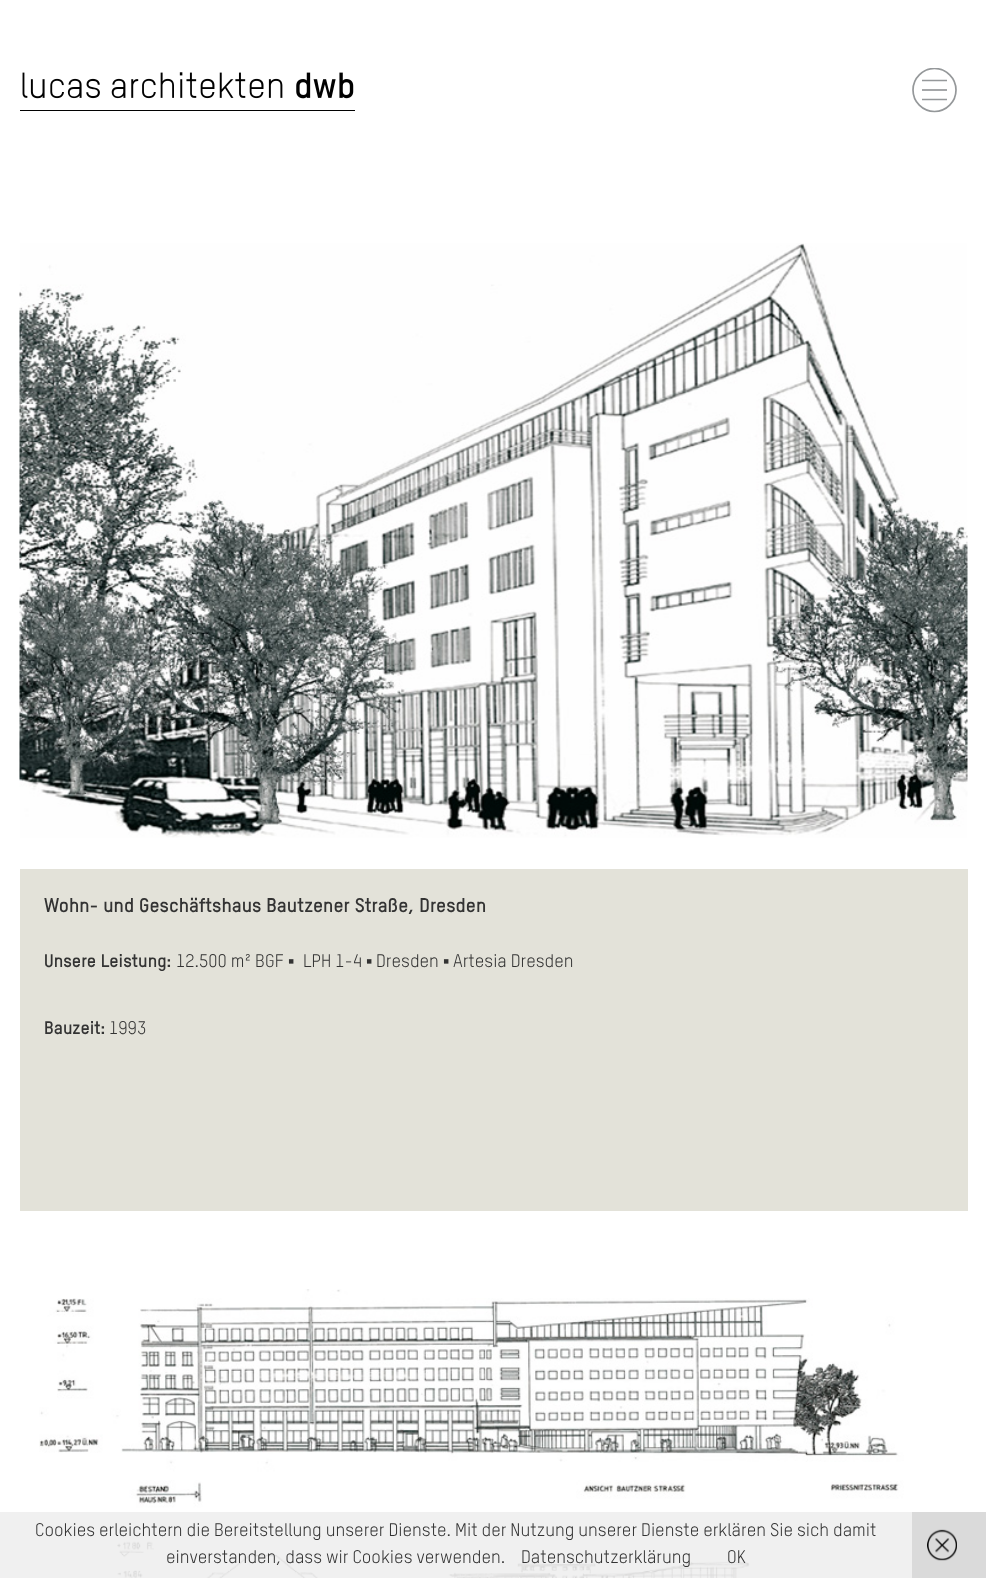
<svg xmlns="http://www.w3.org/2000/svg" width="986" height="1578">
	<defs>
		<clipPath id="clip1"><rect x="912" y="68" width="45" height="45" /></clipPath>
	</defs>
	<rect width="100%" height="100%" fill="#FFFFFF" />
	<image x="20" y="72" width="335" height="39" href="assets/img1.png" />
	<g clip-path="url(#clip1)">
		<circle cx="934.5" cy="90" r="21.5" fill="none" stroke="#95989A" stroke-width="1.7" />
	</g>
	<path d="M922 80.5H947M922 99.5H947" fill="none" stroke="#95989A" stroke-width="1.7" />
	<rect x="922" y="89" width="25" height="2" fill="#A5A7A9" />
	<image x="19" y="243" width="949" height="595" href="assets/img2.png" />
	<rect x="20" y="869" width="948" height="342" fill="#E3E2D9" />
	<text x="44" y="912" font-family="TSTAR" font-size="19.5" font-weight="700" fill="#333333">Wohn- und Geschäftshaus Bautzener Straße, Dresden</text>
	<text x="44" y="967" font-family="TSTAR" font-size="18" font-weight="700" fill="#333333">Unsere Leistung:</text>
	<text x="176" y="967" font-family="TSTAR" font-size="18" fill="#333333">12.500 m² BGF</text>
	<text x="288" y="967" font-family="Liberation Sans" font-size="18" fill="#333333">▪</text>
	<text x="303" y="967" font-family="TSTAR" font-size="18" fill="#333333">LPH 1-4</text>
	<text x="366" y="967" font-family="Liberation Sans" font-size="18" fill="#333333">▪</text>
	<text x="376" y="967" font-family="TSTAR" font-size="18" fill="#333333">Dresden</text>
	<text x="443" y="967" font-family="Liberation Sans" font-size="18" fill="#333333">▪</text>
	<text x="453" y="967" font-family="TSTAR" font-size="18" fill="#333333">Artesia Dresden</text>
	<text x="44" y="1034" font-family="TSTAR" font-size="18" font-weight="700" fill="#333333">Bauzeit:</text>
	<text x="109" y="1034" font-family="TSTAR" font-size="18" fill="#333333">1993</text>
	<image x="39" y="1289" width="917" height="289" href="assets/img3.png" />
	<rect x="0" y="1512" width="986" height="66" fill="#EEEEEE" fill-opacity="0.9" />
	<g font-family="TSTAR" font-size="18" fill="#333333">
		<text x="35" y="1536">Cookies erleichtern die Bereitstellung unserer Dienste. Mit der Nutzung unserer Dienste erklären Sie sich damit</text>
		<text x="166" y="1563">einverstanden, dass wir Cookies verwenden.</text>
		<text x="521" y="1563">Datenschutzerklärung</text>
		<text x="727" y="1563">OK</text>
	</g>
	<rect x="912" y="1512" width="74" height="66" fill="#CCCCCC" fill-opacity="0.6" />
	<image x="927" y="1529" width="30" height="32" href="assets/img4.png" />
</svg>
